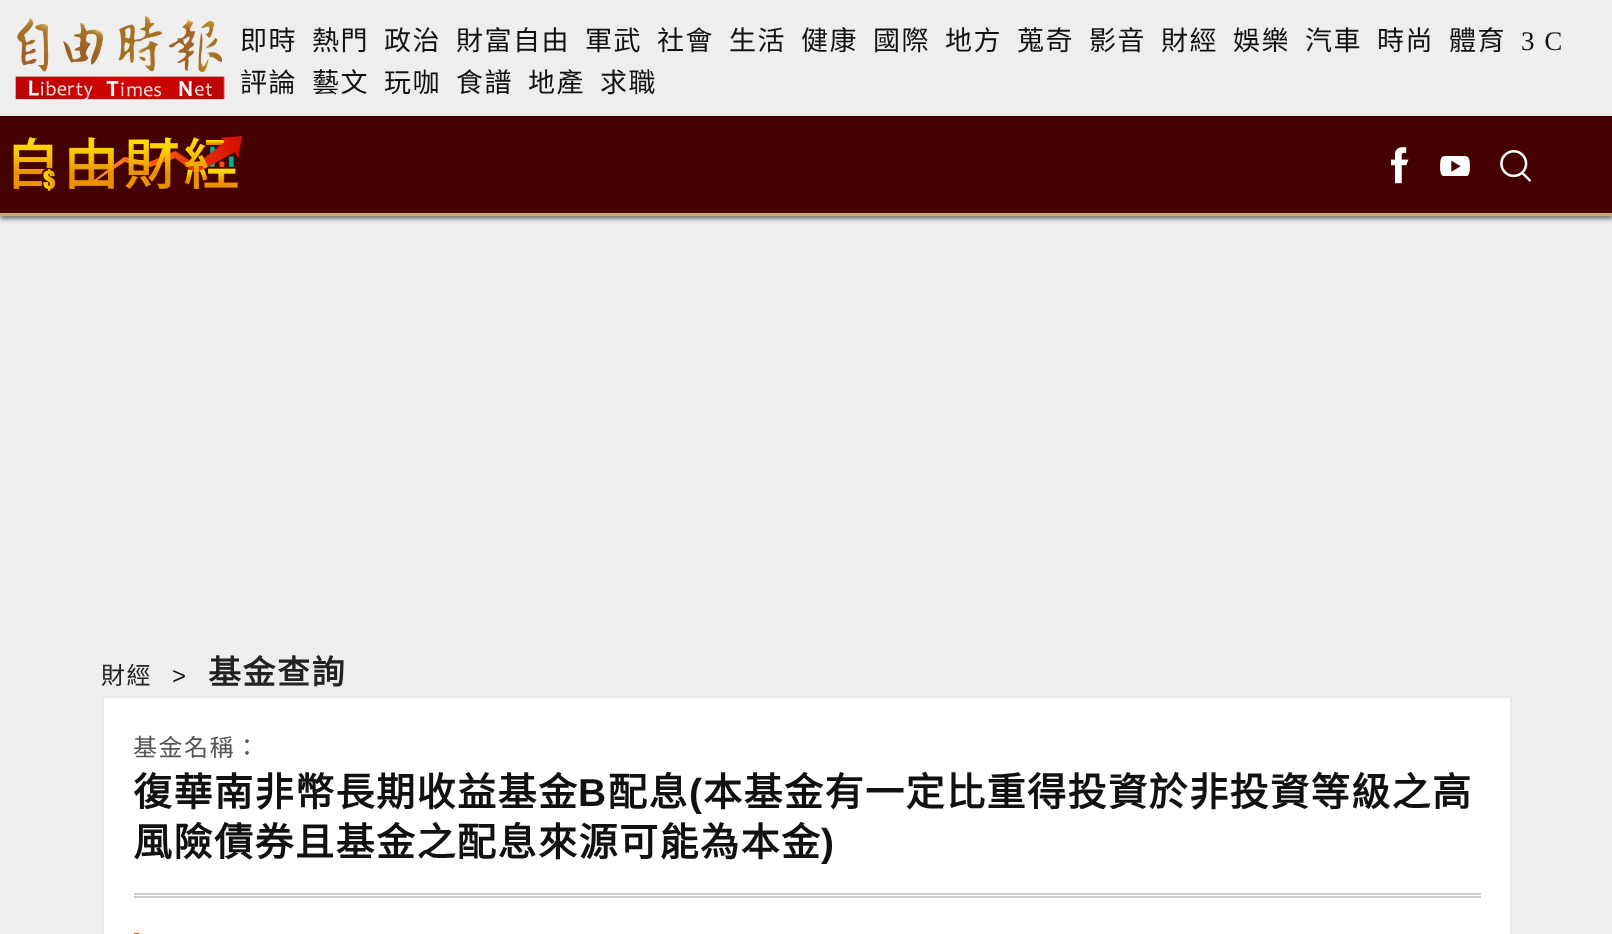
<svg xmlns="http://www.w3.org/2000/svg" width="1612" height="934">
	<rect width="100%" height="100%" fill="#EEEEEE" />
	<image x="15" y="16" width="210" height="84" href="assets/img1.png" />
	<g font-family="Noto Sans CJK TC" font-size="27" letter-spacing="1.5" fill="#111111">
		<text x="240" y="50">即時</text>
		<text x="312" y="50">熱門</text>
		<text x="384" y="50">政治</text>
		<text x="456" y="50">財富自由</text>
		<text x="585" y="50">軍武</text>
		<text x="657" y="50">社會</text>
		<text x="729" y="50">生活</text>
		<text x="801" y="50">健康</text>
		<text x="873" y="50">國際</text>
		<text x="945" y="50">地方</text>
		<text x="1017" y="50">蒐奇</text>
		<text x="1089" y="50">影音</text>
		<text x="1161" y="50">財經</text>
		<text x="1233" y="50">娛樂</text>
		<text x="1305" y="50">汽車</text>
		<text x="1377" y="50">時尚</text>
		<text x="1449" y="50">體育</text>
	</g>
	<text x="1521" y="50" font-family="Liberation Serif" font-size="27" letter-spacing="1.5" fill="#111111">3 C</text>
	<g font-family="Noto Sans CJK TC" font-size="27" letter-spacing="1.5" fill="#111111">
		<text x="240" y="92">評論</text>
		<text x="312" y="92">藝文</text>
		<text x="384" y="92">玩咖</text>
		<text x="456" y="92">食譜</text>
		<text x="528" y="92">地產</text>
		<text x="600" y="92">求職</text>
	</g>
	<rect x="0" y="119" width="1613" height="100" fill="#000000" fill-opacity="0.5" filter="blur(2px)" />
	<rect x="0" y="116" width="1612" height="97" fill="#450000" />
	<rect x="0" y="213" width="1612" height="3" fill="#CFA972" />
	<image x="13" y="136" width="230" height="55" href="assets/img2.png" />
	<image x="1391" y="147" width="18" height="37" href="assets/img3.png" />
	<image x="1440" y="156" width="30" height="20" href="assets/img4.png" />
	<image x="1500" y="150" width="32" height="32" href="assets/img5.png" />
	<text x="101" y="684" font-family="Noto Sans CJK TC" font-size="24" letter-spacing="1.5" fill="#222222">財經</text>
	<text x="172" y="684" font-family="Liberation Sans" font-size="24" letter-spacing="1.5" fill="#111111">&gt;</text>
	<text x="208" y="684" font-family="Noto Sans CJK TC" font-size="33" font-weight="700" letter-spacing="1.5" fill="#222222">基金查詢</text>
	<rect x="103" y="697" width="1408" height="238" fill="#FFFFFF" stroke="#EAEAEA" stroke-width="2" />
	<text x="133" y="756" font-family="Noto Sans CJK TC" font-size="24" letter-spacing="1.5" fill="#555555">基金名稱：</text>
	<text x="133" y="806" font-family="Noto Sans CJK TC" font-size="39" font-weight="700" letter-spacing="1.5" fill="#111111">復華南非幣長期收益基金</text>
	<text x="578" y="806" font-family="Liberation Sans" font-size="39" font-weight="700" letter-spacing="1.5" fill="#111111">B</text>
	<text x="608" y="806" font-family="Noto Sans CJK TC" font-size="39" font-weight="700" letter-spacing="1.5" fill="#111111">配息</text>
	<text x="689" y="806" font-family="Liberation Sans" font-size="39" font-weight="700" letter-spacing="1.5" fill="#111111">(</text>
	<g font-family="Noto Sans CJK TC" font-size="39" font-weight="700" letter-spacing="1.5" fill="#111111">
		<text x="703" y="806">本基金有一定比重得投資於非投資等級之高</text>
		<text x="133" y="856">風險債券且基金之配息來源可能為本金</text>
	</g>
	<text x="821" y="856" font-family="Liberation Sans" font-size="39" font-weight="700" letter-spacing="1.5" fill="#111111">)</text>
	<rect x="134" y="893" width="1347" height="2" fill="#CCCCCC" />
	<rect x="134" y="896" width="1347" height="2" fill="#CCCCCC" />
	<rect x="134" y="933" width="5" height="1" fill="#CC6600" />
</svg>
